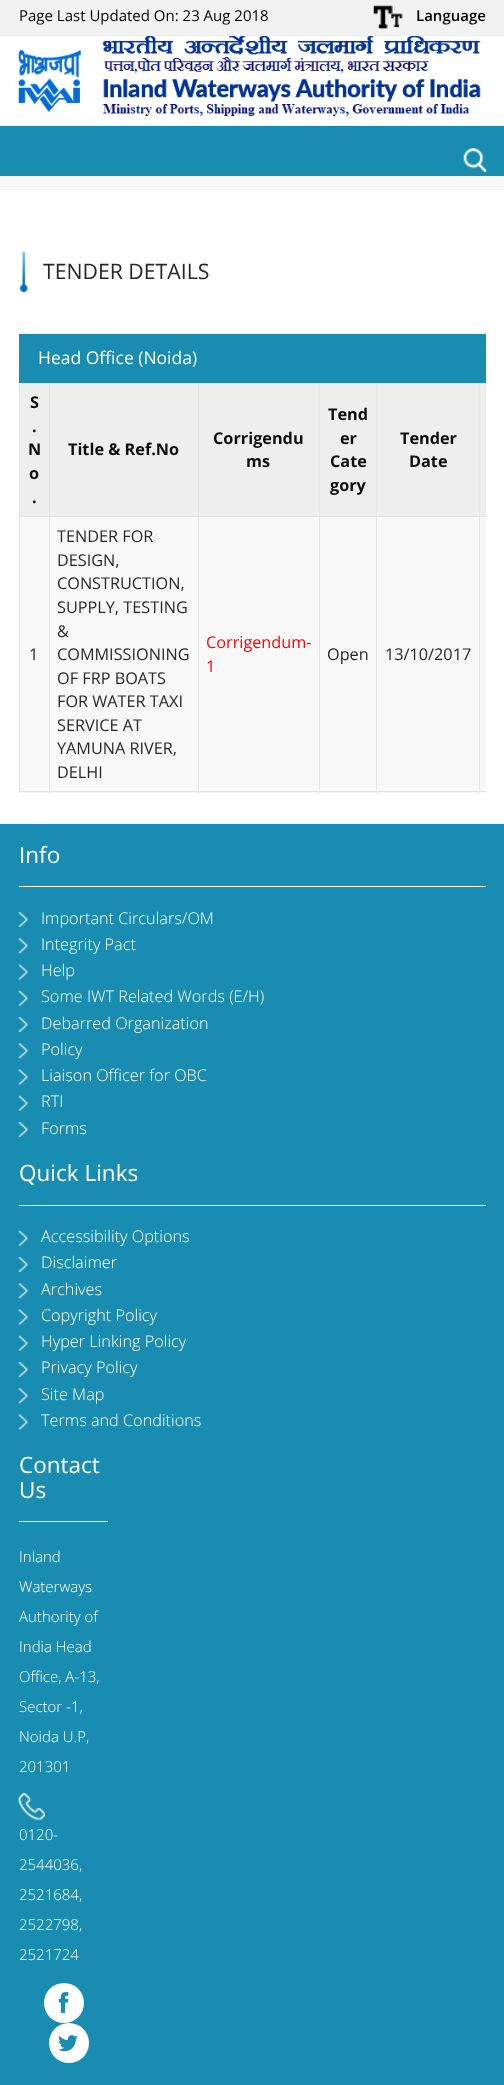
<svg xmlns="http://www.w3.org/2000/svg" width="504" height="2085">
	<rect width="100%" height="100%" fill="#FFFFFF" />
	<rect x="0" y="0" width="504" height="35" fill="#F2F2F2" />
	<rect x="0" y="35" width="504" height="1" fill="#EEEEEE" />
	<text x="19" y="21" font-family="Open Sans" font-size="15" fill="#000000">Page Last Updated On: 23 Aug 2018</text>
	<image x="373" y="5" width="30" height="24" href="assets/img1.png" />
	<text x="416" y="21" font-family="Open Sans" font-size="15" font-weight="600" fill="#000000">Language</text>
	<image x="18" y="36" width="463" height="80" href="assets/img2.png" />
	<rect x="0" y="126" width="504" height="50" fill="#198DB1" />
	<image x="463" y="148" width="24" height="24" href="assets/img3.png" />
	<rect x="0" y="176" width="504" height="13" fill="#F8F8F8" />
	<rect x="0" y="189" width="504" height="1" fill="#F3F3F3" />
	<image x="19" y="252" width="9" height="41" href="assets/img4.png" />
	<text x="43" y="279" font-family="Open Sans" font-size="21.25" fill="#272727">TENDER DETAILS</text>
	<rect x="19" y="334" width="467" height="49" fill="#198DB1" />
	<text x="38" y="364" font-family="Open Sans" font-size="17.5" fill="#FFFFFF">Head Office (Noida)</text>
	<rect x="20" y="384" width="29" height="132" fill="#EEEEEE" />
	<rect x="480" y="383" width="6" height="133" fill="#EEEEEE" />
	<rect x="479" y="383" width="7" height="1" fill="#E4E4E4" />
	<rect x="20" y="517" width="466" height="276" fill="#F8F8F8" />
	<rect x="479" y="516" width="7" height="1" fill="#E4E4E4" />
	<rect x="479" y="791" width="7" height="1" fill="#E4E4E4" />
	<rect x="479" y="516" width="1" height="277" fill="#E4E4E4" />
	<rect x="376" y="516" width="104" height="1" fill="#E4E4E4" />
	<rect x="479" y="383" width="1" height="135" fill="#E4E4E4" />
	<rect x="376" y="383" width="104" height="1" fill="#E4E4E4" />
	<rect x="320" y="384" width="159" height="132" fill="#EEEEEE" />
	<rect x="376" y="791" width="104" height="1" fill="#E4E4E4" />
	<rect x="376" y="516" width="1" height="277" fill="#E4E4E4" />
	<rect x="319" y="516" width="59" height="1" fill="#E4E4E4" />
	<rect x="376" y="383" width="1" height="135" fill="#E4E4E4" />
	<rect x="319" y="383" width="59" height="1" fill="#E4E4E4" />
	<rect x="319" y="791" width="59" height="1" fill="#E4E4E4" />
	<rect x="319" y="516" width="1" height="277" fill="#E4E4E4" />
	<rect x="198" y="516" width="122" height="1" fill="#E4E4E4" />
	<rect x="319" y="383" width="1" height="135" fill="#E4E4E4" />
	<rect x="198" y="383" width="122" height="1" fill="#E4E4E4" />
	<rect x="198" y="791" width="122" height="1" fill="#E4E4E4" />
	<rect x="198" y="516" width="1" height="277" fill="#E4E4E4" />
	<rect x="49" y="516" width="150" height="1" fill="#E4E4E4" />
	<rect x="198" y="383" width="1" height="135" fill="#E4E4E4" />
	<rect x="49" y="383" width="150" height="1" fill="#E4E4E4" />
	<rect x="49" y="791" width="150" height="1" fill="#E4E4E4" />
	<rect x="49" y="516" width="1" height="277" fill="#E4E4E4" />
	<rect x="19" y="516" width="31" height="1" fill="#E4E4E4" />
	<rect x="49" y="383" width="1" height="135" fill="#E4E4E4" />
	<rect x="19" y="383" width="31" height="1" fill="#E4E4E4" />
	<rect x="19" y="791" width="31" height="1" fill="#E4E4E4" />
	<rect x="19" y="516" width="1" height="277" fill="#E4E4E4" />
	<rect x="19" y="383" width="1" height="135" fill="#E4E4E4" />
	<g font-family="Open Sans" font-size="16.25" font-weight="700" fill="#0E0E0E">
		<text x="30" y="408">S</text>
		<text x="32" y="432">.</text>
		<text x="28" y="455">N</text>
		<text x="29" y="479">o</text>
		<text x="32" y="503">.</text>
	</g>
	<rect x="50" y="384" width="148" height="132" fill="#EEEEEE" />
	<text x="68" y="455" font-family="Open Sans" font-size="16.25" font-weight="700" fill="#0E0E0E">Title &amp; Ref.No</text>
	<rect x="199" y="384" width="120" height="132" fill="#EEEEEE" />
	<g font-family="Open Sans" font-size="16.25" font-weight="700" fill="#0E0E0E">
		<text x="213" y="444">Corrigendu</text>
		<text x="246" y="467">ms</text>
		<text x="328" y="420">Tend</text>
		<text x="340" y="444">er</text>
		<text x="330" y="467">Cate</text>
		<text x="330" y="491">gory</text>
		<text x="400" y="444">Tender</text>
		<text x="409" y="467">Date</text>
	</g>
	<g font-family="Open Sans" font-size="16.25" fill="#272727">
		<text x="29" y="660">1</text>
		<text x="57" y="542">TENDER FOR</text>
		<text x="57" y="566">DESIGN,</text>
		<text x="57" y="589">CONSTRUCTION,</text>
		<text x="57" y="613">SUPPLY, TESTING</text>
		<text x="57" y="637">&amp;</text>
		<text x="57" y="660">COMMISSIONING</text>
		<text x="57" y="684">OF FRP BOATS</text>
		<text x="57" y="707">FOR WATER TAXI</text>
		<text x="57" y="731">SERVICE AT</text>
		<text x="57" y="754">YAMUNA RIVER,</text>
		<text x="57" y="778">DELHI</text>
	</g>
	<g font-family="Open Sans" font-size="16.25" fill="#FF0000">
		<text x="206" y="648">Corrigendum-</text>
		<text x="206" y="672">1</text>
	</g>
	<g font-family="Open Sans" font-size="16.25" fill="#272727">
		<text x="327" y="660">Open</text>
		<text x="385" y="660">13/10/2017</text>
	</g>
	<rect x="0" y="824" width="504" height="1261" fill="#198DB1" />
	<rect x="19" y="886" width="467" height="1" fill="#FFFFFF" />
	<text x="19" y="863" font-family="Open Sans" font-size="22.5" fill="#FFFFFF">Info</text>
	<image x="18" y="912" width="10" height="15" href="assets/img5.png" />
	<text x="41" y="924" font-family="Open Sans" font-size="16.25" font-weight="300" fill="#FFFFFF">Important Circulars/OM</text>
	<image x="18" y="938" width="10" height="16" href="assets/img6.png" />
	<text x="41" y="950" font-family="Open Sans" font-size="16.25" font-weight="300" fill="#FFFFFF">Integrity Pact</text>
	<image x="18" y="964" width="10" height="16" href="assets/img7.png" />
	<text x="41" y="976" font-family="Open Sans" font-size="16.25" font-weight="300" fill="#FFFFFF">Help</text>
	<image x="18" y="990" width="10" height="16" href="assets/img8.png" />
	<text x="41" y="1002" font-family="Open Sans" font-size="16.25" font-weight="300" fill="#FFFFFF">Some IWT Related Words (E/H)</text>
	<image x="18" y="1017" width="10" height="15" href="assets/img5.png" />
	<text x="41" y="1029" font-family="Open Sans" font-size="16.25" font-weight="300" fill="#FFFFFF">Debarred Organization</text>
	<image x="18" y="1043" width="10" height="16" href="assets/img6.png" />
	<text x="41" y="1055" font-family="Open Sans" font-size="16.25" font-weight="300" fill="#FFFFFF">Policy</text>
	<image x="18" y="1069" width="10" height="16" href="assets/img7.png" />
	<text x="41" y="1081" font-family="Open Sans" font-size="16.25" font-weight="300" fill="#FFFFFF">Liaison Officer for OBC</text>
	<image x="18" y="1095" width="10" height="16" href="assets/img8.png" />
	<text x="41" y="1107" font-family="Open Sans" font-size="16.25" font-weight="300" fill="#FFFFFF">RTI</text>
	<image x="18" y="1122" width="10" height="15" href="assets/img5.png" />
	<text x="41" y="1134" font-family="Open Sans" font-size="16.25" font-weight="300" fill="#FFFFFF">Forms</text>
	<rect x="19" y="1205" width="467" height="1" fill="#FFFFFF" />
	<text x="19" y="1181" font-family="Open Sans" font-size="22.5" fill="#FFFFFF">Quick Links</text>
	<image x="18" y="1230" width="10" height="16" href="assets/img8.png" />
	<text x="41" y="1242" font-family="Open Sans" font-size="16.25" font-weight="300" fill="#FFFFFF">Accessibility Options</text>
	<image x="18" y="1257" width="10" height="15" href="assets/img5.png" />
	<text x="41" y="1268" font-family="Open Sans" font-size="16.25" font-weight="300" fill="#FFFFFF">Disclaimer</text>
	<image x="18" y="1283" width="10" height="16" href="assets/img6.png" />
	<text x="41" y="1295" font-family="Open Sans" font-size="16.25" font-weight="300" fill="#FFFFFF">Archives</text>
	<image x="18" y="1309" width="10" height="16" href="assets/img7.png" />
	<text x="41" y="1321" font-family="Open Sans" font-size="16.25" font-weight="300" fill="#FFFFFF">Copyright Policy</text>
	<image x="18" y="1335" width="10" height="16" href="assets/img8.png" />
	<text x="41" y="1347" font-family="Open Sans" font-size="16.25" font-weight="300" fill="#FFFFFF">Hyper Linking Policy</text>
	<image x="18" y="1362" width="10" height="15" href="assets/img5.png" />
	<text x="41" y="1373" font-family="Open Sans" font-size="16.25" font-weight="300" fill="#FFFFFF">Privacy Policy</text>
	<image x="18" y="1388" width="10" height="16" href="assets/img6.png" />
	<text x="41" y="1400" font-family="Open Sans" font-size="16.25" font-weight="300" fill="#FFFFFF">Site Map</text>
	<image x="18" y="1414" width="10" height="16" href="assets/img7.png" />
	<text x="41" y="1426" font-family="Open Sans" font-size="16.25" font-weight="300" fill="#FFFFFF">Terms and Conditions</text>
	<rect x="19" y="1521" width="89" height="1" fill="#FFFFFF" />
	<g font-family="Open Sans" font-size="22.5" fill="#FFFFFF">
		<text x="19" y="1473">Contact</text>
		<text x="19" y="1498">Us</text>
	</g>
	<g font-family="Open Sans" font-size="15" font-weight="300" fill="#FFFFFF">
		<text x="19" y="1562">Inland</text>
		<text x="19" y="1592">Waterways</text>
		<text x="19" y="1622">Authority of</text>
		<text x="19" y="1652">India Head</text>
		<text x="19" y="1682">Office, A-13,</text>
		<text x="19" y="1712">Sector -1,</text>
		<text x="19" y="1742">Noida U.P,</text>
		<text x="19" y="1772">201301</text>
	</g>
	<image x="18" y="1793" width="27" height="27" href="assets/img9.png" />
	<g font-family="Open Sans" font-size="15" font-weight="300" fill="#FFFFFF">
		<text x="19" y="1840">0120-</text>
		<text x="19" y="1870">2544036,</text>
		<text x="19" y="1900">2521684,</text>
		<text x="19" y="1930">2522798,</text>
		<text x="19" y="1960">2521724</text>
	</g>
	<circle cx="64" cy="2003" r="20" fill="#FFFFFF" />
	<image x="58" y="1992" width="11" height="21" href="assets/img10.png" />
	<circle cx="69" cy="2043" r="20" fill="#FFFFFF" />
	<image x="58" y="2035" width="20" height="17" href="assets/img11.png" />
</svg>
